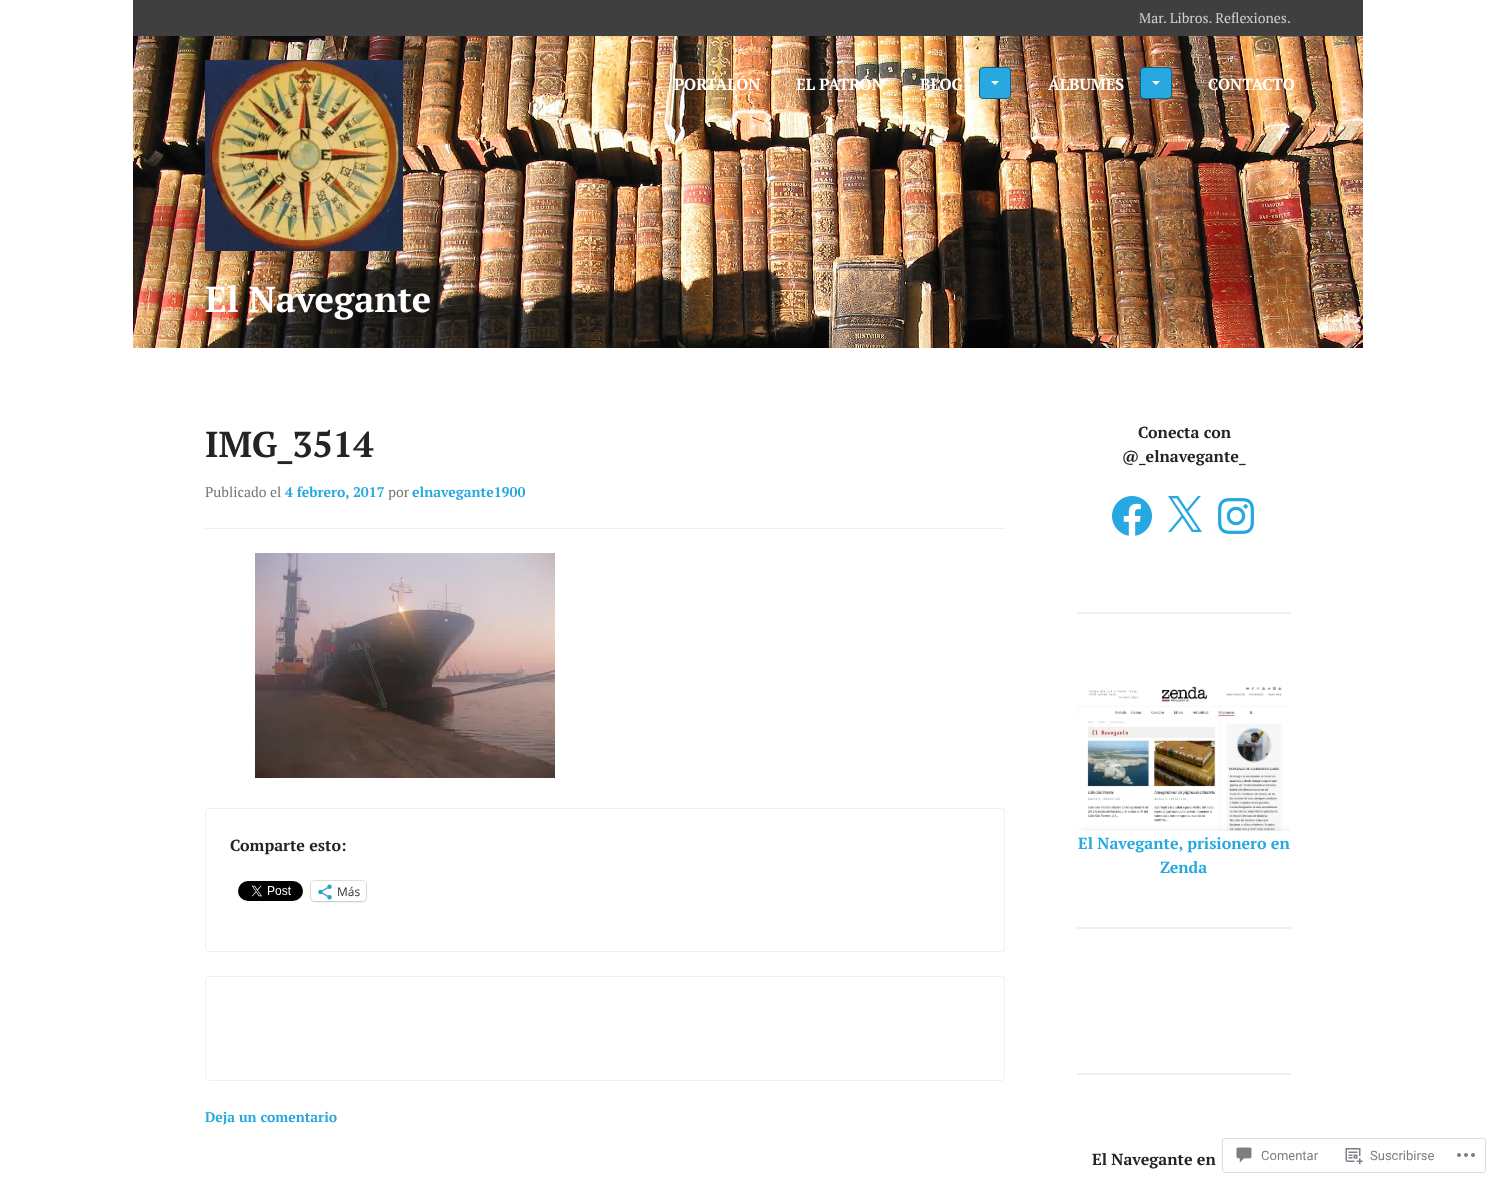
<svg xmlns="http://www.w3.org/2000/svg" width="1496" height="1183">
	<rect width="100%" height="100%" fill="#FFFFFF" />
	<image x="133" y="36" width="1230" height="312" href="assets/img1.png" />
	<rect x="133" y="0" width="1230" height="36" fill="#403F3F" />
	<text x="1139" y="23" font-family="PT Serif" font-size="14" fill="#D2CFCF">Mar. Libros. Reflexiones.</text>
	<g font-family="PT Serif" font-size="16" font-weight="700" fill="#FFFFFF">
		<text x="674" y="90">PORTALÓN</text>
		<text x="796" y="90">EL PATRÓN</text>
		<text x="920" y="90">BLOG</text>
	</g>
	<rect x="979.5" y="67.5" width="31" height="31" rx="3.5" fill="#27A8E0" stroke="#09658F" />
	<path d="M991 81H999L995 85Z" fill="#FFFFFF" />
	<text x="1048" y="90" font-family="PT Serif" font-size="16" font-weight="700" fill="#FFFFFF">ÁLBUMES</text>
	<rect x="1140.5" y="67.5" width="31" height="31" rx="3.5" fill="#27A8E0" stroke="#09658F" />
	<path d="M1152 81H1160L1156 85Z" fill="#FFFFFF" />
	<text x="1208" y="90" font-family="PT Serif" font-size="16" font-weight="700" fill="#FFFFFF">CONTACTO</text>
	<image x="205" y="60" width="198" height="191" href="assets/img2.png" />
	<text x="205" y="312" font-family="PT Serif" font-size="36" font-weight="700" fill="#FFFFFF">El Navegante</text>
	<text x="205" y="457" font-family="PT Serif" font-size="36" font-weight="700" fill="#242424">IMG_3514</text>
	<rect x="205" y="528" width="800" height="1" fill="#F1F0F0" />
	<text x="205" y="497" font-family="PT Serif" font-size="14" fill="#757575">Publicado el</text>
	<text x="285" y="497" font-family="PT Serif" font-size="14" font-weight="700" fill="#27A8E0">4 febrero, 2017</text>
	<text x="388" y="497" font-family="PT Serif" font-size="14" fill="#757575">por</text>
	<text x="412" y="497" font-family="PT Serif" font-size="14" font-weight="700" fill="#27A8E0">elnavegante1900</text>
	<image x="255" y="553" width="300" height="225" href="assets/img3.png" />
	<rect x="205.5" y="808.5" width="799" height="143" rx="3.5" fill="none" stroke="#F1F0F0" />
	<text x="230" y="851" font-family="PT Serif" font-size="16" font-weight="700" fill="#242424">Comparte esto:</text>
	<image x="238" y="881" width="65" height="20" href="assets/img4.png" />
	<rect x="310.5" y="880.5" width="56" height="21" rx="4.5" fill="none" stroke="#E0E0E0" />
	<rect x="311" y="882" width="55" height="20" rx="4" fill="#000000" fill-opacity="0.12" filter="blur(1px)" />
	<rect x="311" y="881" width="55" height="20" rx="4" fill="#FFFFFF" />
	<image x="318" y="884" width="14" height="16" href="assets/img5.png" />
	<text x="337" y="896" font-family="Open Sans" font-size="12" fill="#2C3338">Más</text>
	<rect x="205.5" y="976.5" width="799" height="104" rx="3.5" fill="none" stroke="#F1F0F0" />
	<text x="205" y="1122" font-family="PT Serif" font-size="14" font-weight="700" fill="#27A8E0">Deja un comentario</text>
	<g font-family="PT Serif" font-size="16" font-weight="700" fill="#242424">
		<text x="1138" y="438">Conecta con</text>
		<text x="1122" y="462">@_elnavegante_</text>
	</g>
	<image x="1112" y="496" width="40" height="40" href="assets/img6.png" />
	<image x="1168" y="496" width="34" height="36" href="assets/img7.png" />
	<image x="1218" y="498" width="36" height="36" href="assets/img8.png" />
	<rect x="1077" y="612" width="214" height="2" fill="#F1F0F0" />
	<image x="1077" y="686" width="214" height="145" href="assets/img9.png" />
	<g font-family="PT Serif" font-size="16" font-weight="700" fill="#27A8E0">
		<text x="1078" y="849">El Navegante, prisionero en</text>
		<text x="1160" y="873">Zenda</text>
	</g>
	<rect x="1077" y="927" width="214" height="2" fill="#F1F0F0" />
	<rect x="1077" y="1073" width="214" height="2" fill="#F1F0F0" />
	<text x="1092" y="1165" font-family="PT Serif" font-size="16" font-weight="700" fill="#242424">El Navegante en</text>
	<rect x="1222.5" y="1138.5" width="263" height="34" rx="2.5" fill="none" stroke="#DCDCDE" stroke-opacity="0.98" />
	<image x="1236" y="1147" width="16" height="16" href="assets/img10.png" />
	<text x="1261" y="1160" font-family="Roboto" font-size="13" fill="#7B7F84">Comentar</text>
	<image x="1345" y="1148" width="18" height="17" href="assets/img11.png" />
	<text x="1370" y="1160" font-family="Roboto" font-size="13" fill="#7B7F84">Suscribirse</text>
	<image x="1457" y="1153" width="18" height="4" href="assets/img12.png" />
</svg>
